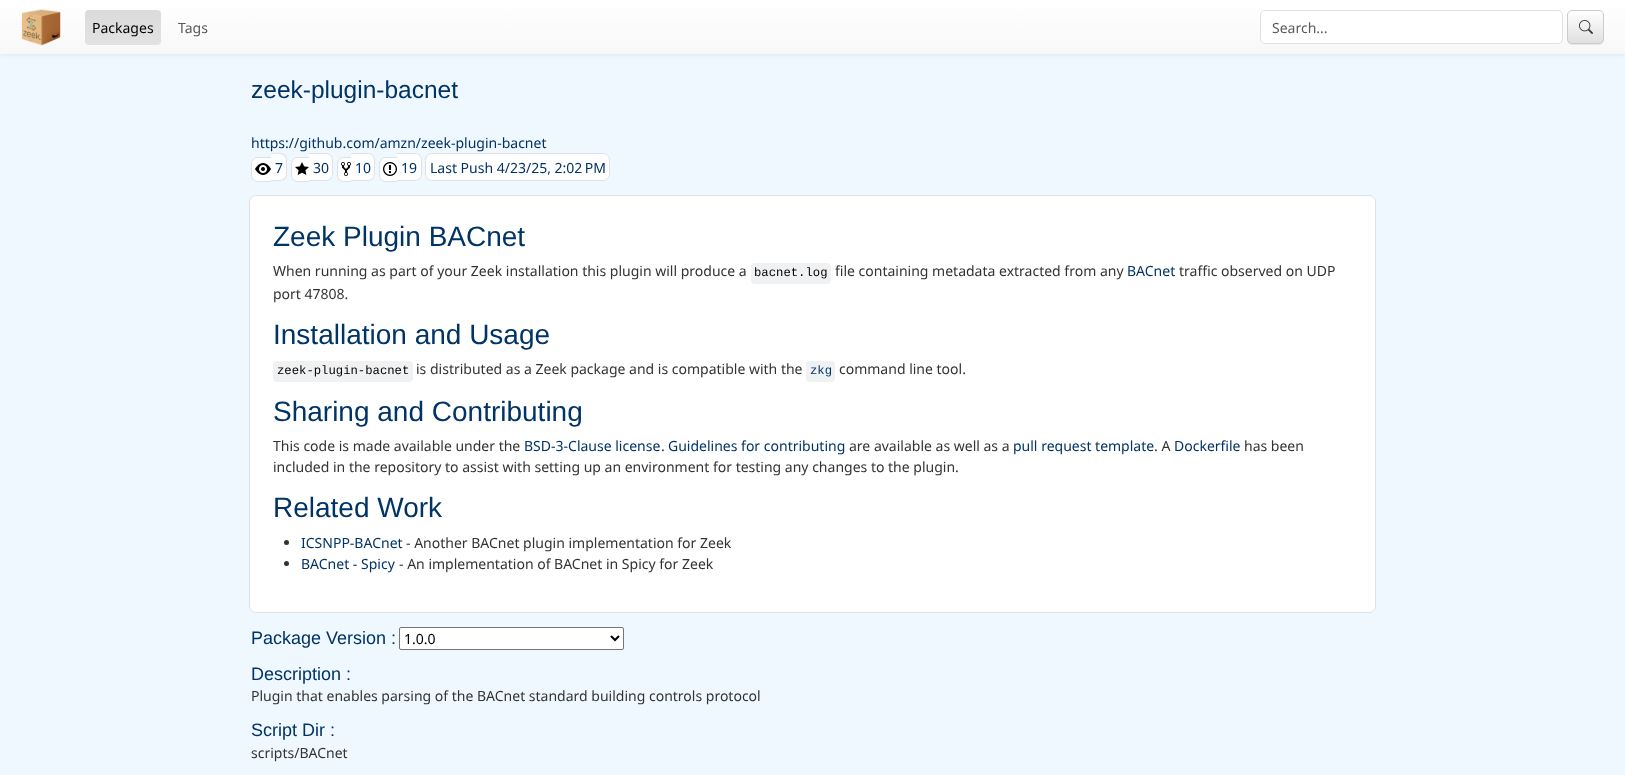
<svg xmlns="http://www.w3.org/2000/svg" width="1625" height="775">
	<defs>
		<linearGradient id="g1" gradientUnits="userSpaceOnUse" x1="813" y1="0" x2="813" y2="54"><stop offset="0" stop-color="#FFFFFF" /><stop offset="1" stop-color="#F8F8F8" /></linearGradient>
		<linearGradient id="g2" gradientUnits="userSpaceOnUse" x1="123" y1="10" x2="123" y2="45"><stop offset="0" stop-color="#DBDBDB" /><stop offset="1" stop-color="#E2E2E2" /></linearGradient>
		<clipPath id="clip1"><rect x="1567" y="10" width="37" height="34" rx="5" /></clipPath>
		<linearGradient id="g3" gradientUnits="userSpaceOnUse" x1="1586" y1="11" x2="1586" y2="43"><stop offset="0" stop-color="#FFFFFF" /><stop offset="1" stop-color="#E0E0E0" /></linearGradient>
	</defs>
	<rect width="100%" height="100%" fill="#F0F8FF" />
	<rect x="0" y="1" width="1625" height="54" fill="#000000" fill-opacity="0.07" filter="blur(2.5px)" />
	<rect x="0" y="0" width="1625" height="54" fill="url(#g1)" />
	<image x="21" y="9" width="40" height="37" href="assets/img1.png" />
	<rect x="85" y="10" width="76" height="35" rx="4" fill="url(#g2)" />
	<text x="92" y="33" font-family="Noto Sans" font-size="14" fill="#000000">Packages</text>
	<text x="178" y="33" font-family="Noto Sans" font-size="14" fill="#585858">Tags</text>
	<rect x="1260.5" y="10.5" width="302" height="33" rx="4.5" fill="#FFFFFF" stroke="#DEE2E6" />
	<text x="1272" y="33" font-family="Noto Sans" font-size="14" fill="#595C5F">Search...</text>
	<rect x="1567" y="11" width="37" height="34" rx="5" fill="#000000" fill-opacity="0.07" filter="blur(0.5px)" />
	<g clip-path="url(#clip1)">
		<rect x="1567" y="11" width="37" height="32" fill="url(#g3)" />
	</g>
	<rect x="1567.5" y="10.5" width="36" height="33" rx="4.5" fill="none" stroke="#CCCCCC" />
	<image x="1579" y="20" width="14" height="14" href="assets/img2.png" />
	<text x="251" y="98" font-family="Liberation Sans" font-size="24.5" fill="#003366">zeek-plugin-bacnet</text>
	<text x="251" y="148" font-family="Noto Sans" font-size="14" fill="#003366">https://github.com/amzn/zeek-plugin-bacnet</text>
	<path d="M258 157H271V182H258C254 182 251 179 251 175V164C251 160 254 157 258 157Z" fill="#FFFFFF" />
	<path d="M258 157H271V182H258C254 182 251 179 251 175V164C251 160 254 157 258 157ZM258 158H271V181H258C254.5 181 252 178.5 252 175V164C252 160.5 254.5 158 258 158Z" fill="#DEE2E6" fill-rule="evenodd" />
	<image x="255" y="163" width="16" height="12" href="assets/img3.png" />
	<path d="M271 153H280C284 153 287 156 287 160V174C287 178 284 181 280 181H271Z" fill="#FFFFFF" />
	<path d="M271 153C276.5 153 285.5 151.5 287 158.5V175.5C285.5 182.5 276.5 181 271 181ZM271 154C276 154 284.5 152.5 286 159V175C284.5 181.5 276 180 271 180Z" fill="#DEE2E6" fill-rule="evenodd" />
	<text x="275" y="173" font-family="Noto Sans" font-size="14" fill="#003366">7</text>
	<path d="M298 157H309V182H298C294 182 291 179 291 175V164C291 160 294 157 298 157Z" fill="#FFFFFF" />
	<path d="M298 157H309V182H298C294 182 291 179 291 175V164C291 160 294 157 298 157ZM298 158H309V181H298C294.5 181 292 178.5 292 175V164C292 160.5 294.5 158 298 158Z" fill="#DEE2E6" fill-rule="evenodd" />
	<image x="295" y="162" width="14" height="13" href="assets/img4.png" />
	<path d="M309 153H326C330 153 333 156 333 160V174C333 178 330 181 326 181H309Z" fill="#FFFFFF" />
	<path d="M309 153H326C330 153 333 156 333 160V174C333 178 330 181 326 181H309ZM309 154H326C329.5 154 332 156.5 332 160V174C332 177.5 329.5 180 326 180H309Z" fill="#DEE2E6" fill-rule="evenodd" />
	<text x="313" y="173" font-family="Noto Sans" font-size="14" fill="#003366">30</text>
	<path d="M344 157H351V182H344C340 182 337 179 337 175V164C337 160 340 157 344 157Z" fill="#FFFFFF" />
	<path d="M344 157H351V182H344C340 182 337 179 337 175V164C337 160 340 157 344 157ZM344 158H351V181H344C340.5 181 338 178.5 338 175V164C338 160.5 340.5 158 344 158Z" fill="#DEE2E6" fill-rule="evenodd" />
	<image x="341" y="162" width="10" height="14" href="assets/img5.png" />
	<path d="M351 153H368C372 153 375 156 375 160V174C375 178 372 181 368 181H351Z" fill="#FFFFFF" />
	<path d="M351 153H368C372 153 375 156 375 160V174C375 178 372 181 368 181H351ZM351 154H368C371.5 154 374 156.5 374 160V174C374 177.5 371.5 180 368 180H351Z" fill="#DEE2E6" fill-rule="evenodd" />
	<text x="355" y="173" font-family="Noto Sans" font-size="14" fill="#003366">10</text>
	<path d="M386 157H397V182H386C382 182 379 179 379 175V164C379 160 382 157 386 157Z" fill="#FFFFFF" />
	<path d="M386 157H397V182H386C382 182 379 179 379 175V164C379 160 382 157 386 157ZM386 158H397V181H386C382.5 181 380 178.5 380 175V164C380 160.5 382.5 158 386 158Z" fill="#DEE2E6" fill-rule="evenodd" />
	<image x="383" y="162" width="14" height="14" href="assets/img6.png" />
	<path d="M397 153H415C419 153 422 156 422 160V174C422 178 419 181 415 181H397Z" fill="#FFFFFF" />
	<path d="M397 153H415C419 153 422 156 422 160V174C422 178 419 181 415 181H397ZM397 154H415C418.5 154 421 156.5 421 160V174C421 177.5 418.5 180 415 180H397Z" fill="#DEE2E6" fill-rule="evenodd" />
	<text x="401" y="173" font-family="Noto Sans" font-size="14" fill="#003366">19</text>
	<rect x="425.5" y="153.5" width="184" height="27" rx="6.5" fill="#FFFFFF" stroke="#DEE2E6" />
	<text x="430" y="173" font-family="Noto Sans" font-size="14" fill="#003366">Last Push 4/23/25, 2:02 PM</text>
	<rect x="249.5" y="195.5" width="1126" height="417" rx="6.5" fill="#FFFFFF" stroke="#DEE2E6" />
	<text x="273" y="246" font-family="Liberation Sans" font-size="28" fill="#003366">Zeek Plugin BACnet</text>
	<text x="273" y="276" font-family="Noto Sans" font-size="14" fill="#333333">When running as part of your Zeek installation this plugin will produce a</text>
	<rect x="751" y="263" width="80" height="21" rx="4" fill="#F0F1F2" />
	<text x="754" y="276" font-family="Liberation Mono" font-size="12.25" fill="#000000">bacnet.log</text>
	<text x="835" y="276" font-family="Noto Sans" font-size="14" fill="#333333">file containing metadata extracted from any</text>
	<text x="1127" y="276" font-family="Noto Sans" font-size="14" fill="#003366">BACnet</text>
	<g font-family="Noto Sans" font-size="14" fill="#333333">
		<text x="1179" y="276">traffic observed on UDP</text>
		<text x="273" y="299">port 47808.</text>
	</g>
	<text x="273" y="344" font-family="Liberation Sans" font-size="28" fill="#003366">Installation and Usage</text>
	<rect x="273" y="361" width="140" height="21" rx="4" fill="#F0F1F2" />
	<text x="277" y="374" font-family="Liberation Mono" font-size="12.25" fill="#000000">zeek-plugin-bacnet</text>
	<text x="416" y="374" font-family="Noto Sans" font-size="14" fill="#333333">is distributed as a Zeek package and is compatible with the</text>
	<rect x="806" y="361" width="29" height="21" rx="4" fill="#F0F1F2" />
	<text x="810" y="374" font-family="Liberation Mono" font-size="12.25" fill="#003366">zkg</text>
	<text x="839" y="374" font-family="Noto Sans" font-size="14" fill="#333333">command line tool.</text>
	<text x="273" y="421" font-family="Liberation Sans" font-size="28" fill="#003366">Sharing and Contributing</text>
	<text x="273" y="451" font-family="Noto Sans" font-size="14" fill="#333333">This code is made available under the</text>
	<text x="524" y="451" font-family="Noto Sans" font-size="14" fill="#003366">BSD-3-Clause license</text>
	<text x="661" y="451" font-family="Noto Sans" font-size="14" fill="#333333">.</text>
	<text x="668" y="451" font-family="Noto Sans" font-size="14" fill="#003366">Guidelines for contributing</text>
	<text x="849" y="451" font-family="Noto Sans" font-size="14" fill="#333333">are available as well as a</text>
	<text x="1013" y="451" font-family="Noto Sans" font-size="14" fill="#003366">pull request template</text>
	<text x="1154" y="451" font-family="Noto Sans" font-size="14" fill="#333333">. A</text>
	<text x="1174" y="451" font-family="Noto Sans" font-size="14" fill="#003366">Dockerfile</text>
	<g font-family="Noto Sans" font-size="14" fill="#333333">
		<text x="1244" y="451">has been</text>
		<text x="273" y="472">included in the repository to assist with setting up an environment for testing any changes to the plugin.</text>
	</g>
	<text x="273" y="517" font-family="Liberation Sans" font-size="28" fill="#003366">Related Work</text>
	<circle cx="286.5" cy="542.5" r="2.5" fill="#333333" />
	<text x="301" y="548" font-family="Noto Sans" font-size="14" fill="#003366">ICSNPP-BACnet</text>
	<text x="406" y="548" font-family="Noto Sans" font-size="14" fill="#333333">- Another BACnet plugin implementation for Zeek</text>
	<circle cx="286.5" cy="563.5" r="2.5" fill="#333333" />
	<text x="301" y="569" font-family="Noto Sans" font-size="14" fill="#003366">BACnet - Spicy</text>
	<text x="399" y="569" font-family="Noto Sans" font-size="14" fill="#333333">- An implementation of BACnet in Spicy for Zeek</text>
	<text x="251" y="644" font-family="Liberation Sans" font-size="18" fill="#003366">Package Version :</text>
	<rect x="399.5" y="627.5" width="224" height="22" rx="1.5" fill="#FFFFFF" stroke="#767676" />
	<path d="M611 636L615 640L619 636" fill="none" stroke="#000000" stroke-width="2" />
	<text x="404" y="644" font-family="Noto Sans" font-size="14" fill="#000000">1.0.0</text>
	<text x="251" y="680" font-family="Liberation Sans" font-size="18" fill="#003366">Description :</text>
	<text x="251" y="701" font-family="Noto Sans" font-size="14" fill="#333333">Plugin that enables parsing of the BACnet standard building controls protocol</text>
	<text x="251" y="736" font-family="Liberation Sans" font-size="18" fill="#003366">Script Dir :</text>
	<text x="251" y="758" font-family="Noto Sans" font-size="14" fill="#333333">scripts/BACnet</text>
</svg>
